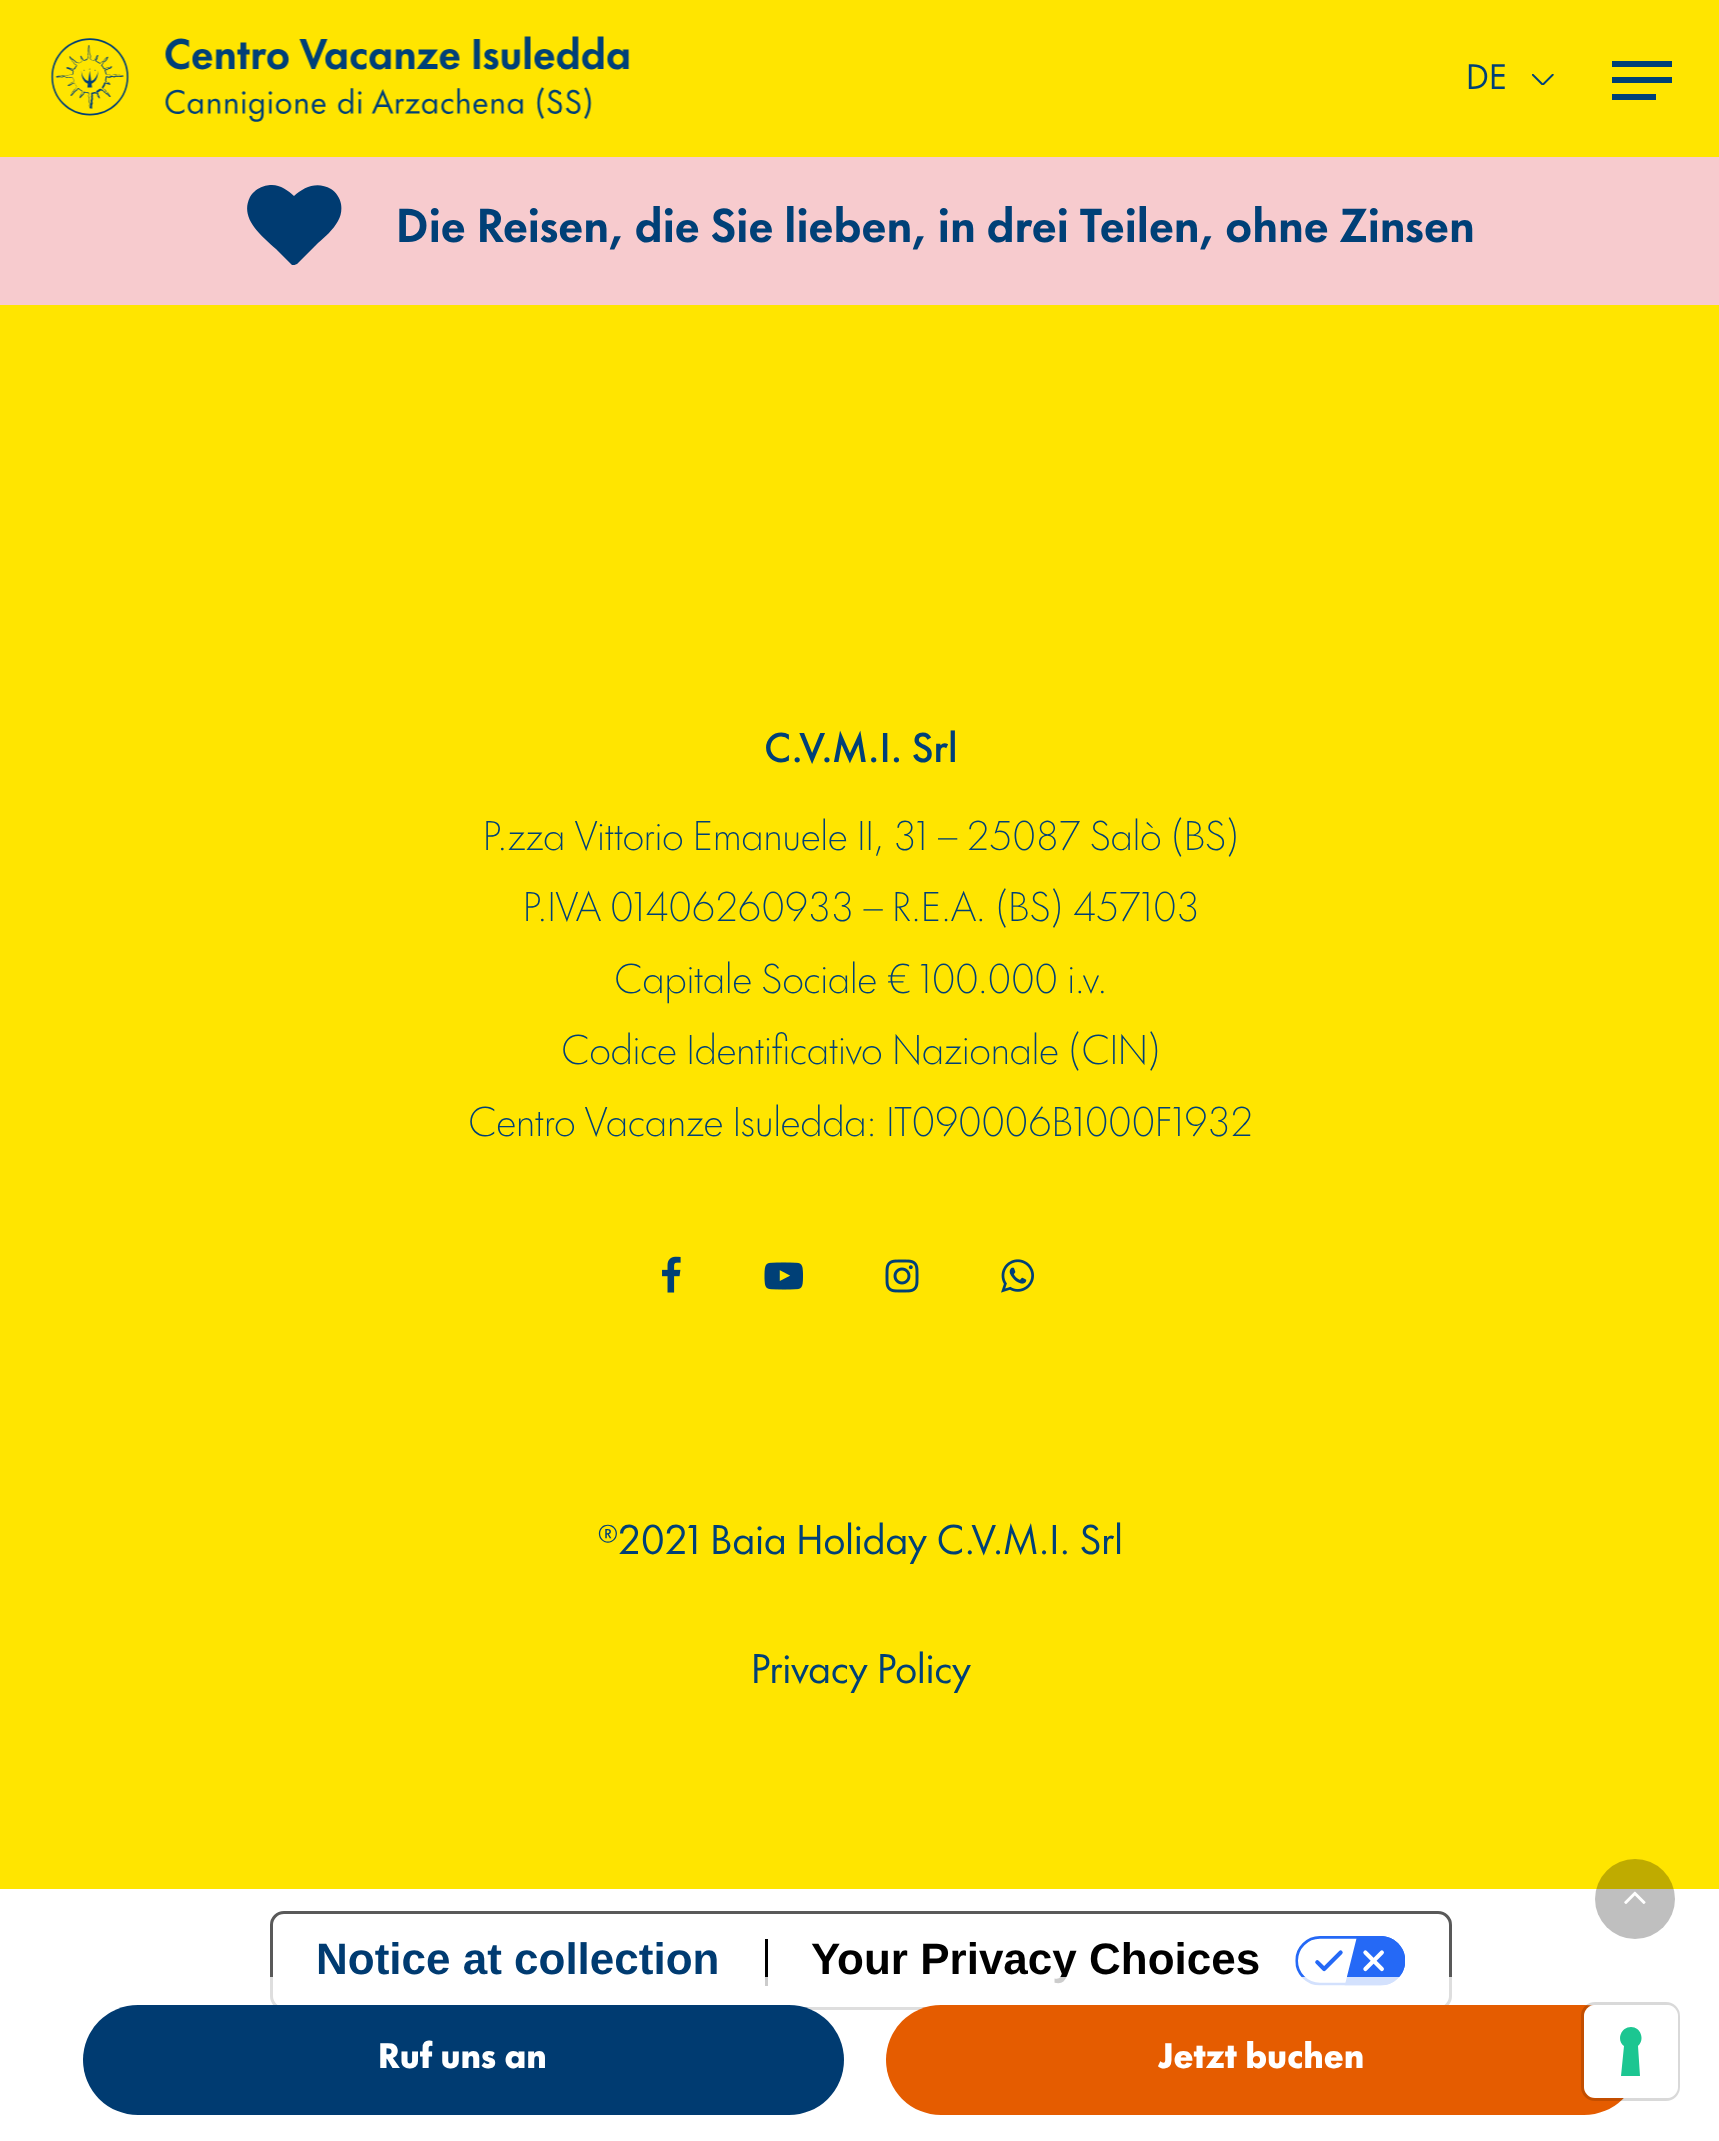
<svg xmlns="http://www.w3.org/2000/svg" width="1719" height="2141">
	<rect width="100%" height="100%" fill="#FFFFFF" />
	<rect x="0" y="0" width="1719" height="157" fill="#FFE500" />
	<image x="50" y="36" width="580" height="86" href="assets/img1.png" />
	<text x="1466" y="89" font-family="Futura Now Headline" font-size="33" fill="#004077">DE</text>
	<image x="1532" y="74" width="22" height="11" href="assets/img2.png" />
	<rect x="1612" y="61" width="60" height="6" fill="#004077" />
	<rect x="1612" y="94" width="44" height="6" fill="#004077" />
	<rect x="1612" y="77" width="60" height="6" fill="#004077" />
	<rect x="0" y="157" width="1719" height="148" fill="#F7CBCE" />
	<path d="M297 264C295 265 294 265 292 265L276 249C262 236 239 219 250 197C254 190 261 186 270 185C279 184 288 190 294 196C304 187 317 181 331 189C336 192 340 198 341 204C342 210 341 216 338 221C333 230 325 237 318 243Z" fill="#003B71" />
	<text x="396" y="242" font-family="'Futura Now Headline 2'" font-size="44" font-weight="700" fill="#004077">Die Reisen, die Sie lieben, in drei Teilen, ohne Zinsen</text>
	<rect x="0" y="305" width="1719" height="1584" fill="#FFE500" />
	<text x="764" y="762" font-family="Futura Now Headline" font-size="38.5" font-weight="500" fill="#004077">C.V.M.I. Srl</text>
	<g font-family="Futura Now Headline" font-size="38.5" font-weight="300" fill="#004077">
		<text x="483" y="850">P.zza Vittorio Emanuele II, 31 – 25087 Salò (BS)</text>
		<text x="523" y="921">P.IVA 01406260933 – R.E.A. (BS) 457103</text>
		<text x="614" y="993">Capitale Sociale € 100.000 i.v.</text>
		<text x="561" y="1064">Codice Identificativo Nazionale (CIN)</text>
		<text x="468" y="1136">Centro Vacanze Isuledda: IT090006B1000F1932</text>
	</g>
	<image x="662" y="1256" width="19" height="37" href="assets/img3.png" />
	<image x="764" y="1262" width="39" height="28" href="assets/img4.png" />
	<image x="885" y="1259" width="34" height="34" href="assets/img5.png" />
	<image x="1001" y="1259" width="33" height="34" href="assets/img6.png" />
	<g font-family="Futura Now Headline" font-size="38.5" fill="#004077">
		<text x="598" y="1554">®2021 Baia Holiday C.V.M.I. Srl</text>
		<text x="751" y="1683">Privacy Policy</text>
	</g>
	<rect x="271.5" y="1912.5" width="1179" height="96" rx="12.5" fill="none" stroke="#595959" stroke-width="3" />
	<rect x="765" y="1939" width="3" height="47" fill="#000000" />
	<text x="811" y="1974" font-family="Liberation Sans" font-size="44" font-weight="700" fill="#000000">Your Privacy Choices</text>
	<image x="1295" y="1936" width="110" height="50" href="assets/img8.png" />
	<rect x="270" y="1977" width="1182" height="33" fill="#FFFFFF" fill-opacity="0.8" />
	<rect x="83" y="2005" width="761" height="110" rx="55" fill="#003B71" />
	<text x="378" y="2068" font-family="Futura Now Headline" font-size="33" font-weight="700" fill="#FFFFFF">Ruf uns an</text>
	<rect x="886" y="2005" width="753" height="110" rx="55" fill="#E55C00" />
	<text x="1158" y="2068" font-family="Futura Now Headline" font-size="33" font-weight="700" fill="#FFFFFF">Jetzt buchen</text>
	<circle cx="1635" cy="1899" r="40" fill="#000000" fill-opacity="0.25" />
	<image x="1624" y="1891" width="22" height="13" href="assets/img7.png" />
	<text x="316" y="1974" font-family="Liberation Sans" font-size="44" font-weight="700" fill="#003B71">Notice at collection</text>
	<rect x="1582.5" y="2003.5" width="96" height="96" rx="12.5" fill="none" stroke="#000000" stroke-opacity="0.15" stroke-width="3" />
	<rect x="1584" y="2005" width="94" height="93" rx="11" fill="#FFFFFF" />
	<path d="M1631 2027C1641 2027 1645 2040 1638 2046L1640 2076H1621L1624 2046C1616 2040 1621 2027 1631 2027Z" fill="#1CC691" fill-rule="evenodd" />
</svg>
